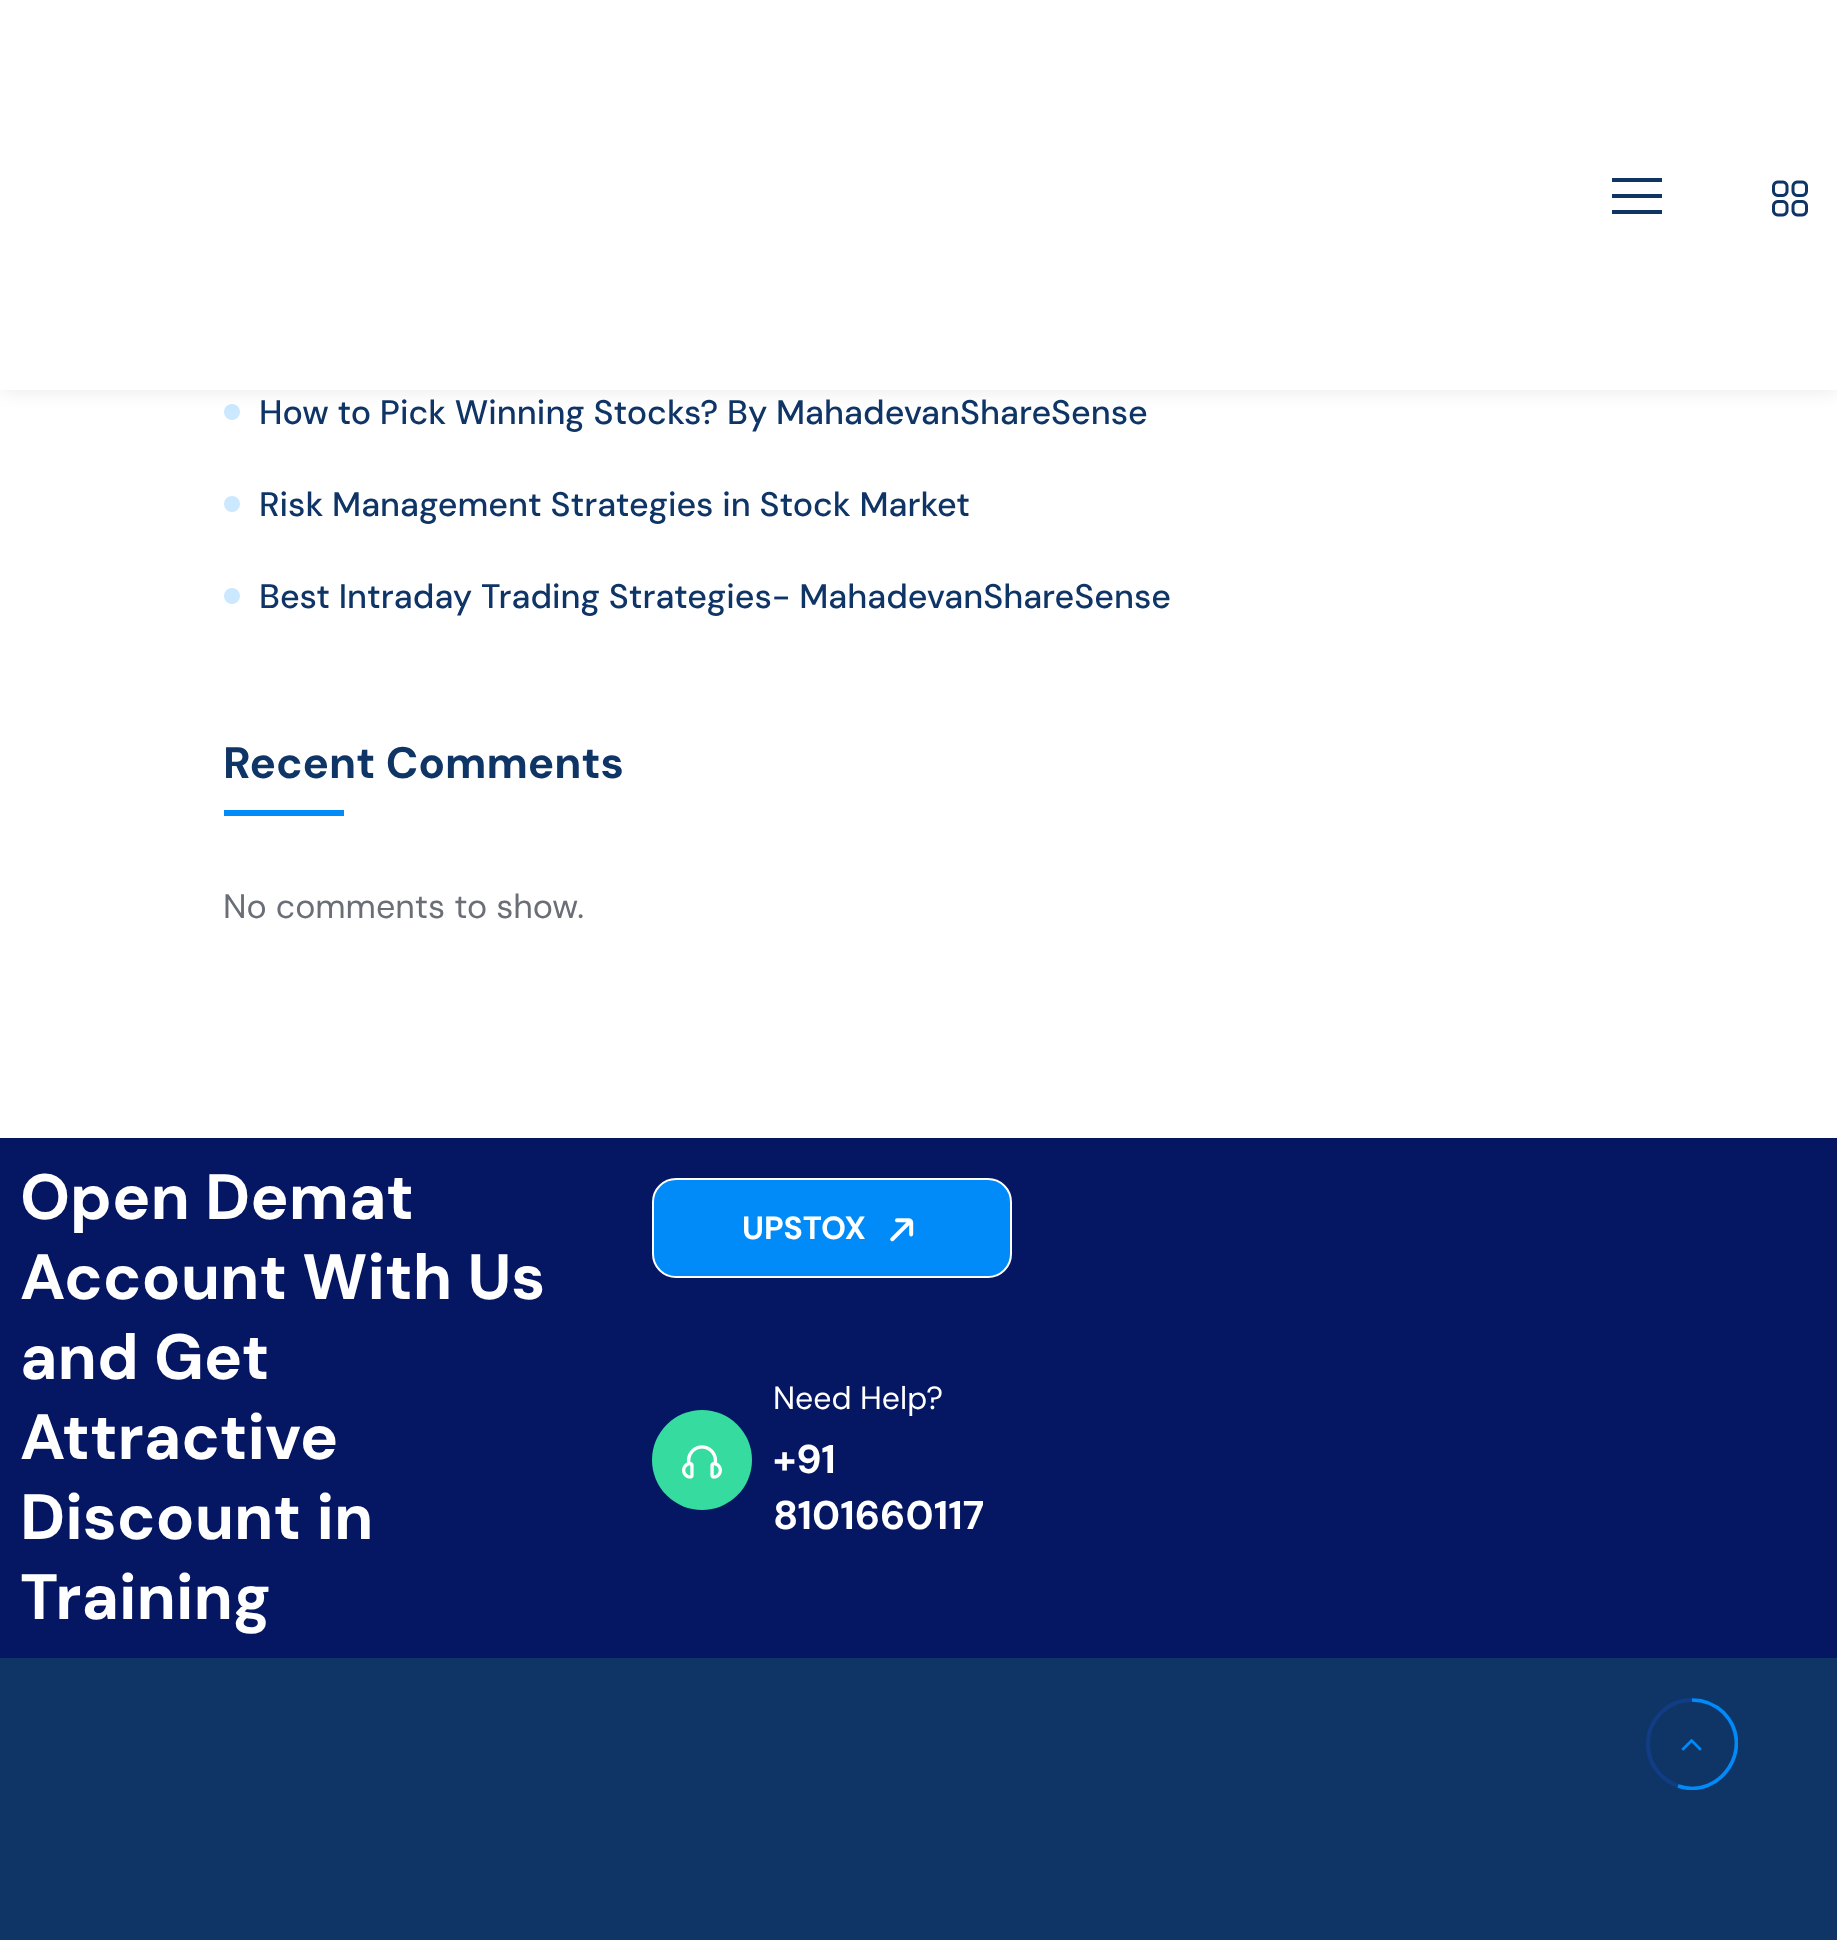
<svg xmlns="http://www.w3.org/2000/svg" width="1837" height="1940">
	<defs>
		<clipPath id="clip1"><rect x="1646" y="1698" width="92" height="92" /></clipPath>
	</defs>
	<rect width="100%" height="100%" fill="#FFFFFF" />
	<circle cx="232" cy="412" r="8" fill="#CCE8FE" />
	<rect x="0" y="0" width="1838" height="390" fill="#000000" fill-opacity="0.09" filter="blur(10px)" />
	<rect x="0" y="0" width="1837" height="390" fill="#FFFFFF" />
	<rect x="1612" y="178" width="50" height="4" fill="#0F3567" />
	<rect x="1612" y="194" width="50" height="4" fill="#0F3567" />
	<rect x="1612" y="210" width="50" height="4" fill="#0F3567" />
	<image x="1772" y="180" width="36" height="37" href="assets/img1.png" />
	<text x="259" y="424" font-family="DM Sans" font-size="34" font-weight="500" fill="#0F3567">How to Pick Winning Stocks? By MahadevanShareSense</text>
	<circle cx="232" cy="504" r="8" fill="#CCE8FE" />
	<text x="259" y="516" font-family="DM Sans" font-size="34" font-weight="500" fill="#0F3567">Risk Management Strategies in Stock Market</text>
	<circle cx="232" cy="596" r="8" fill="#CCE8FE" />
	<text x="259" y="608" font-family="DM Sans" font-size="34" font-weight="500" fill="#0F3567">Best Intraday Trading Strategies- MahadevanShareSense</text>
	<text x="223" y="778" font-family="DM Sans" font-size="44" font-weight="700" fill="#0F3567">Recent Comments</text>
	<rect x="224" y="810" width="120" height="6" fill="#008BF9" />
	<text x="223" y="918" font-family="DM Sans" font-size="34" fill="#696E77">No comments to show.</text>
	<rect x="0" y="1138" width="1837" height="520" fill="#051663" />
	<g font-family="DM Sans" font-size="64" font-weight="700" fill="#FFFFFF">
		<text x="20" y="1219">Open Demat</text>
		<text x="20" y="1299">Account With Us</text>
		<text x="20" y="1379">and Get</text>
		<text x="20" y="1459">Attractive</text>
		<text x="20" y="1539">Discount in</text>
		<text x="20" y="1619">Training</text>
	</g>
	<rect x="653" y="1179" width="358" height="98" rx="23" fill="#008BF9" stroke="#FFFFFF" stroke-width="2" />
	<text x="742" y="1239" font-family="DM Sans" font-size="32" font-weight="700" fill="#FFFFFF">UPSTOX</text>
	<image x="890" y="1218" width="24" height="24" href="assets/img2.png" />
	<circle cx="702" cy="1460" r="50" fill="#36DB9F" />
	<image x="682" y="1445" width="40" height="34" href="assets/img3.png" />
	<text x="773" y="1409" font-family="DM Sans" font-size="32" fill="#FFFFFF">Need Help?</text>
	<g font-family="DM Sans" font-size="40" font-weight="700" fill="#FFFFFF">
		<text x="773" y="1473">+91</text>
		<text x="773" y="1529">8101660117</text>
	</g>
	<rect x="0" y="1658" width="1837" height="282" fill="#0F3567" />
	<circle cx="1692" cy="1744" r="44" fill="none" stroke="#103D83" stroke-width="4" />
	<g clip-path="url(#clip1)">
		<path d="M1692 1700C1703.5 1700 1715 1704.5 1723.5 1712.5C1756.5 1746 1721 1800.5 1678 1786" fill="none" stroke="#008BF9" stroke-width="3.6" />
	</g>
	<image x="1681" y="1739" width="21" height="12" href="assets/img4.png" />
</svg>
